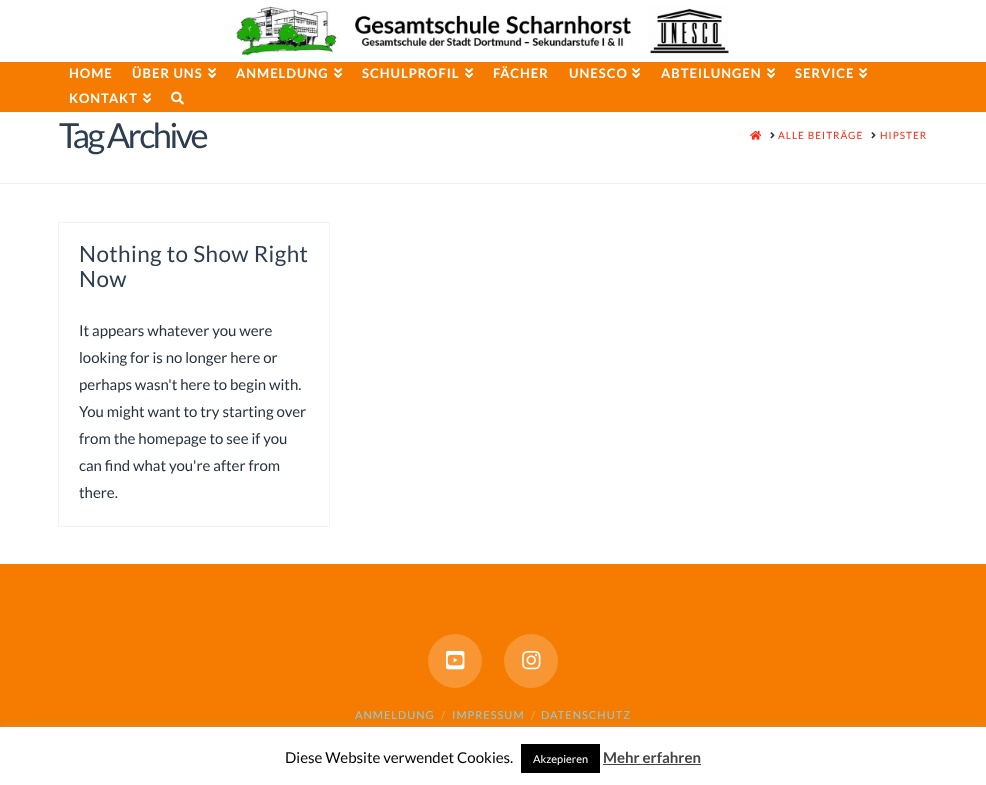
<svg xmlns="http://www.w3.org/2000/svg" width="986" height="785">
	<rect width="100%" height="100%" fill="#FFFFFF" />
	<image x="234" y="6" width="495" height="51" href="assets/img1.png" />
	<rect x="0" y="62" width="986" height="50" fill="#F57C00" />
	<g font-family="Lato" font-size="13" font-weight="700" letter-spacing="1" fill="#FFFFFF">
		<text x="69" y="78">HOME</text>
		<text x="132" y="78">ÜBER UNS</text>
	</g>
	<image x="208" y="68" width="9" height="11" href="assets/img2.png" />
	<text x="236" y="78" font-family="Lato" font-size="13" font-weight="700" letter-spacing="1" fill="#FFFFFF">ANMELDUNG</text>
	<image x="334" y="68" width="9" height="11" href="assets/img2.png" />
	<text x="362" y="78" font-family="Lato" font-size="13" font-weight="700" letter-spacing="1" fill="#FFFFFF">SCHULPROFIL</text>
	<image x="465" y="68" width="9" height="11" href="assets/img2.png" />
	<g font-family="Lato" font-size="13" font-weight="700" letter-spacing="1" fill="#FFFFFF">
		<text x="493" y="78">FÄCHER</text>
		<text x="569" y="78">UNESCO</text>
	</g>
	<image x="632" y="68" width="9" height="11" href="assets/img2.png" />
	<text x="661" y="78" font-family="Lato" font-size="13" font-weight="700" letter-spacing="1" fill="#FFFFFF">ABTEILUNGEN</text>
	<image x="767" y="68" width="9" height="11" href="assets/img2.png" />
	<text x="795" y="78" font-family="Lato" font-size="13" font-weight="700" letter-spacing="1" fill="#FFFFFF">SERVICE</text>
	<image x="859" y="68" width="9" height="11" href="assets/img2.png" />
	<text x="69" y="103" font-family="Lato" font-size="13" font-weight="700" letter-spacing="1" fill="#FFFFFF">KONTAKT</text>
	<image x="143" y="93" width="9" height="11" href="assets/img2.png" />
	<image x="171" y="91" width="13" height="14" href="assets/img3.png" />
	<rect x="0" y="183" width="986" height="1" fill="#F2F2F2" />
	<text x="59" y="148" font-family="Lato" font-size="34.5" letter-spacing="-2.5" fill="#2C3E50">Tag Archive</text>
	<image x="750" y="130" width="12" height="10" href="assets/img4.png" />
	<image x="770" y="132" width="5" height="7" href="assets/img5.png" />
	<text x="778" y="139" font-family="Lato" font-size="10" letter-spacing="1" fill="#FF2A13">ALLE BEITRÄGE</text>
	<image x="871" y="132" width="5" height="7" href="assets/img5.png" />
	<text x="880" y="139" font-family="Lato" font-size="10" letter-spacing="1" fill="#FF2A13">HIPSTER</text>
	<rect x="58.5" y="222.5" width="271" height="304" fill="none" stroke="#F2F2F2" />
	<g font-family="Lato" font-size="22.5" letter-spacing="0.4" fill="#2C3E50">
		<text x="79" y="262">Nothing to Show Right</text>
		<text x="79" y="287">Now</text>
	</g>
	<g font-family="Lato" font-size="15" fill="#28323F">
		<text x="79" y="336">It appears whatever you were</text>
		<text x="79" y="363">looking for is no longer here or</text>
		<text x="79" y="390">perhaps wasn't here to begin with.</text>
		<text x="79" y="417">You might want to try starting over</text>
		<text x="79" y="444">from the homepage to see if you</text>
		<text x="79" y="471">can find what you're after from</text>
		<text x="79" y="498">there.</text>
	</g>
	<rect x="0" y="564" width="986" height="163" fill="#F57C00" />
	<circle cx="455" cy="661" r="27" fill="#F79633" />
	<image x="446" y="650" width="19" height="20" href="assets/img6.png" />
	<circle cx="531" cy="661" r="27" fill="#F79633" />
	<image x="522" y="650" width="19" height="20" href="assets/img7.png" />
	<text x="355" y="719" font-family="Lato" font-size="11" letter-spacing="1" fill="#87CEEB">ANMELDUNG</text>
	<text x="441" y="719" font-family="Lato" font-size="11" fill="#F9AA59">/</text>
	<text x="452" y="719" font-family="Lato" font-size="11" letter-spacing="1" fill="#87CEEB">IMPRESSUM</text>
	<text x="531" y="719" font-family="Lato" font-size="11" fill="#F9AA59">/</text>
	<text x="541" y="719" font-family="Lato" font-size="11" letter-spacing="1" fill="#87CEEB">DATENSCHUTZ</text>
	<rect x="0" y="726" width="986" height="58" fill="#ACABAB" fill-opacity="0.3" filter="blur(5px)" />
	<rect x="0" y="727" width="986" height="58" fill="#FFFFFF" />
	<text x="285" y="763" font-family="Lato" font-size="15" fill="#000000">Diese Website verwendet Cookies.</text>
	<rect x="521" y="744" width="79" height="29" fill="#000000" />
	<text x="533" y="763" font-family="Lato" font-size="11" fill="#FFFFFF">Akzepieren</text>
	<text x="603" y="763" font-family="Lato" font-size="15" font-weight="700" fill="#444444">Mehr erfahren</text>
	<rect x="603" y="764" width="98" height="1" fill="#444444" />
</svg>
